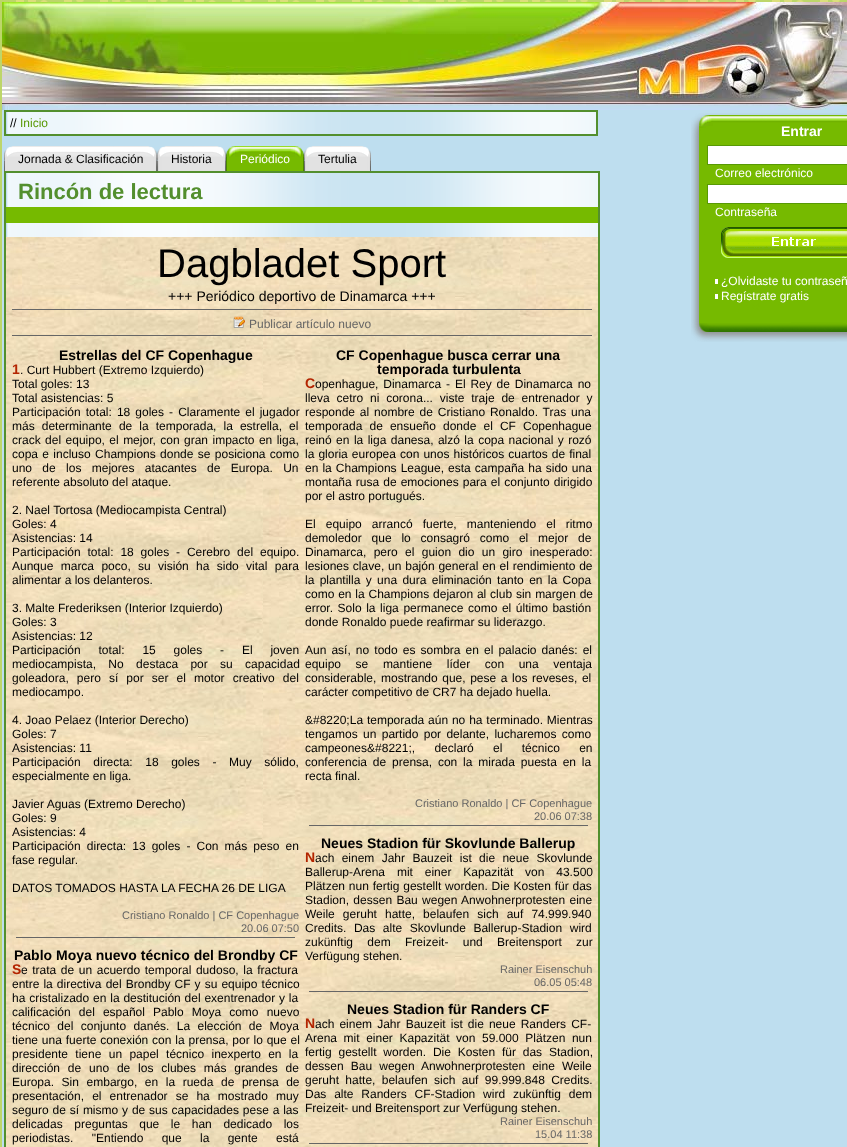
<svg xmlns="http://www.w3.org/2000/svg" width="847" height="1147">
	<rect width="100%" height="100%" fill="#FFFFFF" />
	<image x="0" y="0" width="847" height="1147" href="assets/img1.png" />
	<image x="2" y="2" width="845" height="108" href="assets/img2.png" />
	<rect x="2" y="110" width="845" height="1037" fill="#BEDEEF" />
	<image x="7" y="112" width="589" height="22" href="assets/img3.png" />
	<rect x="5" y="111" width="592" height="24" fill="none" stroke="#538F2E" stroke-width="2" />
	<text x="10" y="127" font-family="Liberation Sans" font-size="12" fill="#000000">//</text>
	<text x="20" y="127" font-family="Liberation Sans" font-size="12" fill="#589905">Inicio</text>
	<image x="143" y="146" width="14" height="25" href="assets/img4.png" />
	<image x="4" y="146" width="139" height="25" href="assets/img5.png" />
	<text x="18" y="163" font-family="Liberation Sans" font-size="12" fill="#000000">Jornada &amp; Clasificación</text>
	<image x="212" y="146" width="14" height="25" href="assets/img4.png" />
	<image x="157" y="146" width="55" height="25" href="assets/img6.png" />
	<text x="171" y="163" font-family="Liberation Sans" font-size="12" fill="#000000">Historia</text>
	<image x="290" y="146" width="14" height="25" href="assets/img7.png" />
	<image x="226" y="146" width="64" height="25" href="assets/img8.png" />
	<text x="240" y="163" font-family="Liberation Sans" font-size="12" fill="#FFFFFF">Periódico</text>
	<image x="357" y="146" width="14" height="25" href="assets/img4.png" />
	<image x="304" y="146" width="53" height="25" href="assets/img9.png" />
	<text x="318" y="163" font-family="Liberation Sans" font-size="12" fill="#000000">Tertulia</text>
	<image x="7" y="173" width="591" height="64" href="assets/img10.png" />
	<rect x="5" y="172" width="594" height="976" fill="none" stroke="#538F2E" stroke-width="2" />
	<text x="18" y="199" font-family="Liberation Sans" font-size="22" font-weight="700" fill="#538F2E">Rincón de lectura</text>
	<rect x="6" y="207" width="592" height="16" fill="#76BA00" />
	<image x="6" y="237" width="592" height="910" href="assets/img11.png" />
	<text x="157" y="277" font-family="Liberation Sans" font-size="40" fill="#000000">Dagbladet Sport</text>
	<text x="168" y="301" font-family="Liberation Sans" font-size="14" fill="#000000">+++ Periódico deportivo de Dinamarca +++</text>
	<rect x="12" y="309" width="580" height="1" fill="#666666" />
	<image x="233" y="316" width="12" height="12" href="assets/img12.png" />
	<text x="249" y="328" font-family="Liberation Sans" font-size="12" fill="#666666">Publicar artículo nuevo</text>
	<rect x="12" y="335" width="580" height="1" fill="#666666" />
	<text x="59" y="360" font-family="Liberation Sans" font-size="14" font-weight="700" fill="#000000">Estrellas del CF Copenhague</text>
	<text x="12" y="374" font-family="Liberation Sans" font-size="14" font-weight="700" fill="#B32400">1</text>
	<g font-family="Liberation Sans" font-size="12" fill="#000000">
		<text x="20" y="374">. Curt Hubbert (Extremo Izquierdo)</text>
		<text x="12" y="388">Total goles: 13</text>
		<text x="12" y="402">Total asistencias: 5</text>
		<text x="12" y="416" word-spacing="1.75">Participación total: 18 goles - Claramente el jugador</text>
		<text x="12" y="430" word-spacing="3.75">más determinante de la temporada, la estrella, el</text>
		<text x="12" y="444" word-spacing="1.1">crack del equipo, el mejor, con gran impacto en liga,</text>
		<text x="12" y="458" word-spacing="1">copa e incluso Champions donde se posiciona como</text>
		<text x="12" y="472" word-spacing="7">uno de los mejores atacantes de Europa. Un</text>
		<text x="12" y="486">referente absoluto del ataque.</text>
		<text x="12" y="514">2. Nael Tortosa (Mediocampista Central)</text>
		<text x="12" y="528">Goles: 4</text>
		<text x="12" y="542">Asistencias: 14</text>
		<text x="12" y="556" word-spacing="3.5">Participación total: 18 goles - Cerebro del equipo.</text>
		<text x="12" y="570" word-spacing="4">Aunque marca poco, su visión ha sido vital para</text>
		<text x="12" y="584">alimentar a los delanteros.</text>
		<text x="12" y="612">3. Malte Frederiksen (Interior Izquierdo)</text>
		<text x="12" y="626">Goles: 3</text>
		<text x="12" y="640">Asistencias: 12</text>
		<text x="12" y="654" word-spacing="14.5">Participación total: 15 goles - El joven</text>
		<text x="12" y="668" word-spacing="9">mediocampista, No destaca por su capacidad</text>
		<text x="12" y="682" word-spacing="4.75">goleadora, pero sí por ser el motor creativo del</text>
		<text x="12" y="696">mediocampo.</text>
		<text x="12" y="724">4. Joao Pelaez (Interior Derecho)</text>
		<text x="12" y="738">Goles: 7</text>
		<text x="12" y="752">Asistencias: 11</text>
		<text x="12" y="766" word-spacing="9.25">Participación directa: 18 goles - Muy sólido,</text>
		<text x="12" y="780">especialmente en liga.</text>
		<text x="12" y="808">Javier Aguas (Extremo Derecho)</text>
		<text x="12" y="822">Goles: 9</text>
		<text x="12" y="836">Asistencias: 4</text>
		<text x="12" y="850" word-spacing="2.75">Participación directa: 13 goles - Con más peso en</text>
		<text x="12" y="864">fase regular.</text>
		<text x="12" y="892">DATOS TOMADOS HASTA LA FECHA 26 DE LIGA</text>
	</g>
	<g font-family="Liberation Sans" font-size="11" fill="#666666">
		<text x="122" y="919">Cristiano Ronaldo | CF Copenhague</text>
		<text x="241" y="932">20.06 07:50</text>
	</g>
	<rect x="16" y="937" width="279" height="1" fill="#666666" />
	<text x="14" y="960" font-family="Liberation Sans" font-size="14" font-weight="700" fill="#000000">Pablo Moya nuevo técnico del Brondby CF</text>
	<text x="12" y="974" font-family="Liberation Sans" font-size="14" font-weight="700" fill="#B32400">S</text>
	<g font-family="Liberation Sans" font-size="12" fill="#000000">
		<text x="21" y="974" word-spacing="1.25">e trata de un acuerdo temporal dudoso, la fractura</text>
		<text x="12" y="988" word-spacing="0.75">entre la directiva del Brondby CF y su equipo técnico</text>
		<text x="12" y="1002" word-spacing="0.5">ha cristalizado en la destitución del exentrenador y la</text>
		<text x="12" y="1016" word-spacing="4.75">calificación del español Pablo Moya como nuevo</text>
		<text x="12" y="1030" word-spacing="4">técnico del conjunto danés. La elección de Moya</text>
		<text x="12" y="1044" word-spacing="0.5">tiene una fuerte conexión con la prensa, por lo que el</text>
		<text x="12" y="1058" word-spacing="4">presidente tiene un papel técnico inexperto en la</text>
		<text x="12" y="1072" word-spacing="4.5">dirección de uno de los clubes más grandes de</text>
		<text x="12" y="1086" word-spacing="4.25">Europa. Sin embargo, en la rueda de prensa de</text>
		<text x="12" y="1100" word-spacing="4.75">presentación, el entrenador se ha mostrado muy</text>
		<text x="12" y="1114" word-spacing="0.5">seguro de sí mismo y de sus capacidades pese a las</text>
		<text x="12" y="1128" word-spacing="8.25">delicadas preguntas que le han dedicado los</text>
		<text x="12" y="1142" word-spacing="15">periodistas. "Entiendo que la gente está</text>
	</g>
	<g font-family="Liberation Sans" font-size="14" font-weight="700" fill="#000000">
		<text x="336" y="360">CF Copenhague busca cerrar una</text>
		<text x="377" y="374">temporada turbulenta</text>
	</g>
	<text x="305" y="388" font-family="Liberation Sans" font-size="14" font-weight="700" fill="#B32400">C</text>
	<g font-family="Liberation Sans" font-size="12" fill="#000000">
		<text x="315" y="388" word-spacing="1.5">openhague, Dinamarca - El Rey de Dinamarca no</text>
		<text x="305" y="402" word-spacing="3.5">lleva cetro ni corona... viste traje de entrenador y</text>
		<text x="305" y="416" word-spacing="1.5">responde al nombre de Cristiano Ronaldo. Tras una</text>
		<text x="305" y="430" word-spacing="3.75">temporada de ensueño donde el CF Copenhague</text>
		<text x="305" y="444" word-spacing="1.1">reinó en la liga danesa, alzó la copa nacional y rozó</text>
		<text x="305" y="458" word-spacing="0.75">la gloria europea con unos históricos cuartos de final</text>
		<text x="305" y="472" word-spacing="0.75">en la Champions League, esta campaña ha sido una</text>
		<text x="305" y="486" word-spacing="0.75">montaña rusa de emociones para el conjunto dirigido</text>
		<text x="305" y="500">por el astro portugués.</text>
		<text x="305" y="528" word-spacing="6.75">El equipo arrancó fuerte, manteniendo el ritmo</text>
		<text x="305" y="542" word-spacing="6.5">demoledor que lo consagró como el mejor de</text>
		<text x="305" y="556" word-spacing="4">Dinamarca, pero el guion dio un giro inesperado:</text>
		<text x="305" y="570" word-spacing="0.5">lesiones clave, un bajón general en el rendimiento de</text>
		<text x="305" y="584" word-spacing="2">la plantilla y una dura eliminación tanto en la Copa</text>
		<text x="305" y="598" word-spacing="0.5">como en la Champions dejaron al club sin margen de</text>
		<text x="305" y="612" word-spacing="1.25">error. Solo la liga permanece como el último bastión</text>
		<text x="305" y="626">donde Ronaldo puede reafirmar su liderazgo.</text>
		<text x="305" y="654" word-spacing="1.75">Aun así, no todo es sombra en el palacio danés: el</text>
		<text x="305" y="668" word-spacing="11.25">equipo se mantiene líder con una ventaja</text>
		<text x="305" y="682" word-spacing="1.25">considerable, mostrando que, pese a los reveses, el</text>
		<text x="305" y="696">carácter competitivo de CR7 ha dejado huella.</text>
		<text x="305" y="724" word-spacing="0.5">&amp;#8220;La temporada aún no ha terminado. Mientras</text>
		<text x="305" y="738" word-spacing="2">tengamos un partido por delante, lucharemos como</text>
		<text x="305" y="752" word-spacing="16">campeones&amp;#8221;, declaró el técnico en</text>
		<text x="305" y="766" word-spacing="2.5">conferencia de prensa, con la mirada puesta en la</text>
		<text x="305" y="780">recta final.</text>
	</g>
	<g font-family="Liberation Sans" font-size="11" fill="#666666">
		<text x="415" y="807">Cristiano Ronaldo | CF Copenhague</text>
		<text x="534" y="820">20.06 07:38</text>
	</g>
	<rect x="309" y="825" width="279" height="1" fill="#666666" />
	<text x="321" y="848" font-family="Liberation Sans" font-size="14" font-weight="700" fill="#000000">Neues Stadion für Skovlunde Ballerup</text>
	<text x="305" y="862" font-family="Liberation Sans" font-size="14" font-weight="700" fill="#B32400">N</text>
	<g font-family="Liberation Sans" font-size="12" fill="#000000">
		<text x="315" y="862" word-spacing="4">ach einem Jahr Bauzeit ist die neue Skovlunde</text>
		<text x="305" y="876" word-spacing="8.5">Ballerup-Arena mit einer Kapazität von 43.500</text>
		<text x="305" y="890" word-spacing="0.5">Plätzen nun fertig gestellt worden. Die Kosten für das</text>
		<text x="305" y="904" word-spacing="1">Stadion, dessen Bau wegen Anwohnerprotesten eine</text>
		<text x="305" y="918" word-spacing="4.75">Weile geruht hatte, belaufen sich auf 74.999.940</text>
		<text x="305" y="932" word-spacing="4.25">Credits. Das alte Skovlunde Ballerup-Stadion wird</text>
		<text x="305" y="946" word-spacing="11">zukünftig dem Freizeit- und Breitensport zur</text>
		<text x="305" y="960">Verfügung stehen.</text>
	</g>
	<g font-family="Liberation Sans" font-size="11" fill="#666666">
		<text x="500" y="973">Rainer Eisenschuh</text>
		<text x="534" y="986">06.05 05:48</text>
	</g>
	<rect x="309" y="991" width="279" height="1" fill="#666666" />
	<text x="347" y="1014" font-family="Liberation Sans" font-size="14" font-weight="700" fill="#000000">Neues Stadion für Randers CF</text>
	<text x="305" y="1028" font-family="Liberation Sans" font-size="14" font-weight="700" fill="#B32400">N</text>
	<g font-family="Liberation Sans" font-size="12" fill="#000000">
		<text x="315" y="1028" word-spacing="1.75">ach einem Jahr Bauzeit ist die neue Randers CF-</text>
		<text x="305" y="1042" word-spacing="3.25">Arena mit einer Kapazität von 59.000 Plätzen nun</text>
		<text x="305" y="1056" word-spacing="3.5">fertig gestellt worden. Die Kosten für das Stadion,</text>
		<text x="305" y="1070" word-spacing="3.75">dessen Bau wegen Anwohnerprotesten eine Weile</text>
		<text x="305" y="1084" word-spacing="3">geruht hatte, belaufen sich auf 99.999.848 Credits.</text>
		<text x="305" y="1098" word-spacing="4.5">Das alte Randers CF-Stadion wird zukünftig dem</text>
		<text x="305" y="1112">Freizeit- und Breitensport zur Verfügung stehen.</text>
	</g>
	<g font-family="Liberation Sans" font-size="11" fill="#666666">
		<text x="500" y="1125">Rainer Eisenschuh</text>
		<text x="535" y="1138">15.04 11:38</text>
	</g>
	<rect x="309" y="1143" width="279" height="1" fill="#666666" />
	<image x="691" y="113" width="156" height="229" href="assets/img13.png" />
	<text x="781" y="136" font-family="Liberation Sans" font-size="14" font-weight="700" fill="#FFFFFF">Entrar</text>
	<rect x="707.5" y="145.5" width="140" height="19" fill="#FFFFFF" stroke="#589905" />
	<text x="715" y="177" font-family="Liberation Sans" font-size="12" fill="#FFFFFF">Correo electrónico</text>
	<rect x="707.5" y="184.5" width="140" height="19" fill="#FFFFFF" stroke="#589905" />
	<text x="715" y="216" font-family="Liberation Sans" font-size="12" fill="#FFFFFF">Contraseña</text>
	<image x="721" y="227" width="126" height="31" href="assets/img14.png" />
	<text x="721" y="285" font-family="Liberation Sans" font-size="12" fill="#FFFFFF">¿Olvidaste tu contraseñ</text>
	<rect x="715" y="279" width="3" height="5" fill="#FFFFFF" />
	<text x="721" y="300" font-family="Liberation Sans" font-size="12" fill="#FFFFFF">Regístrate gratis</text>
	<rect x="715" y="294" width="3" height="5" fill="#FFFFFF" />
</svg>
